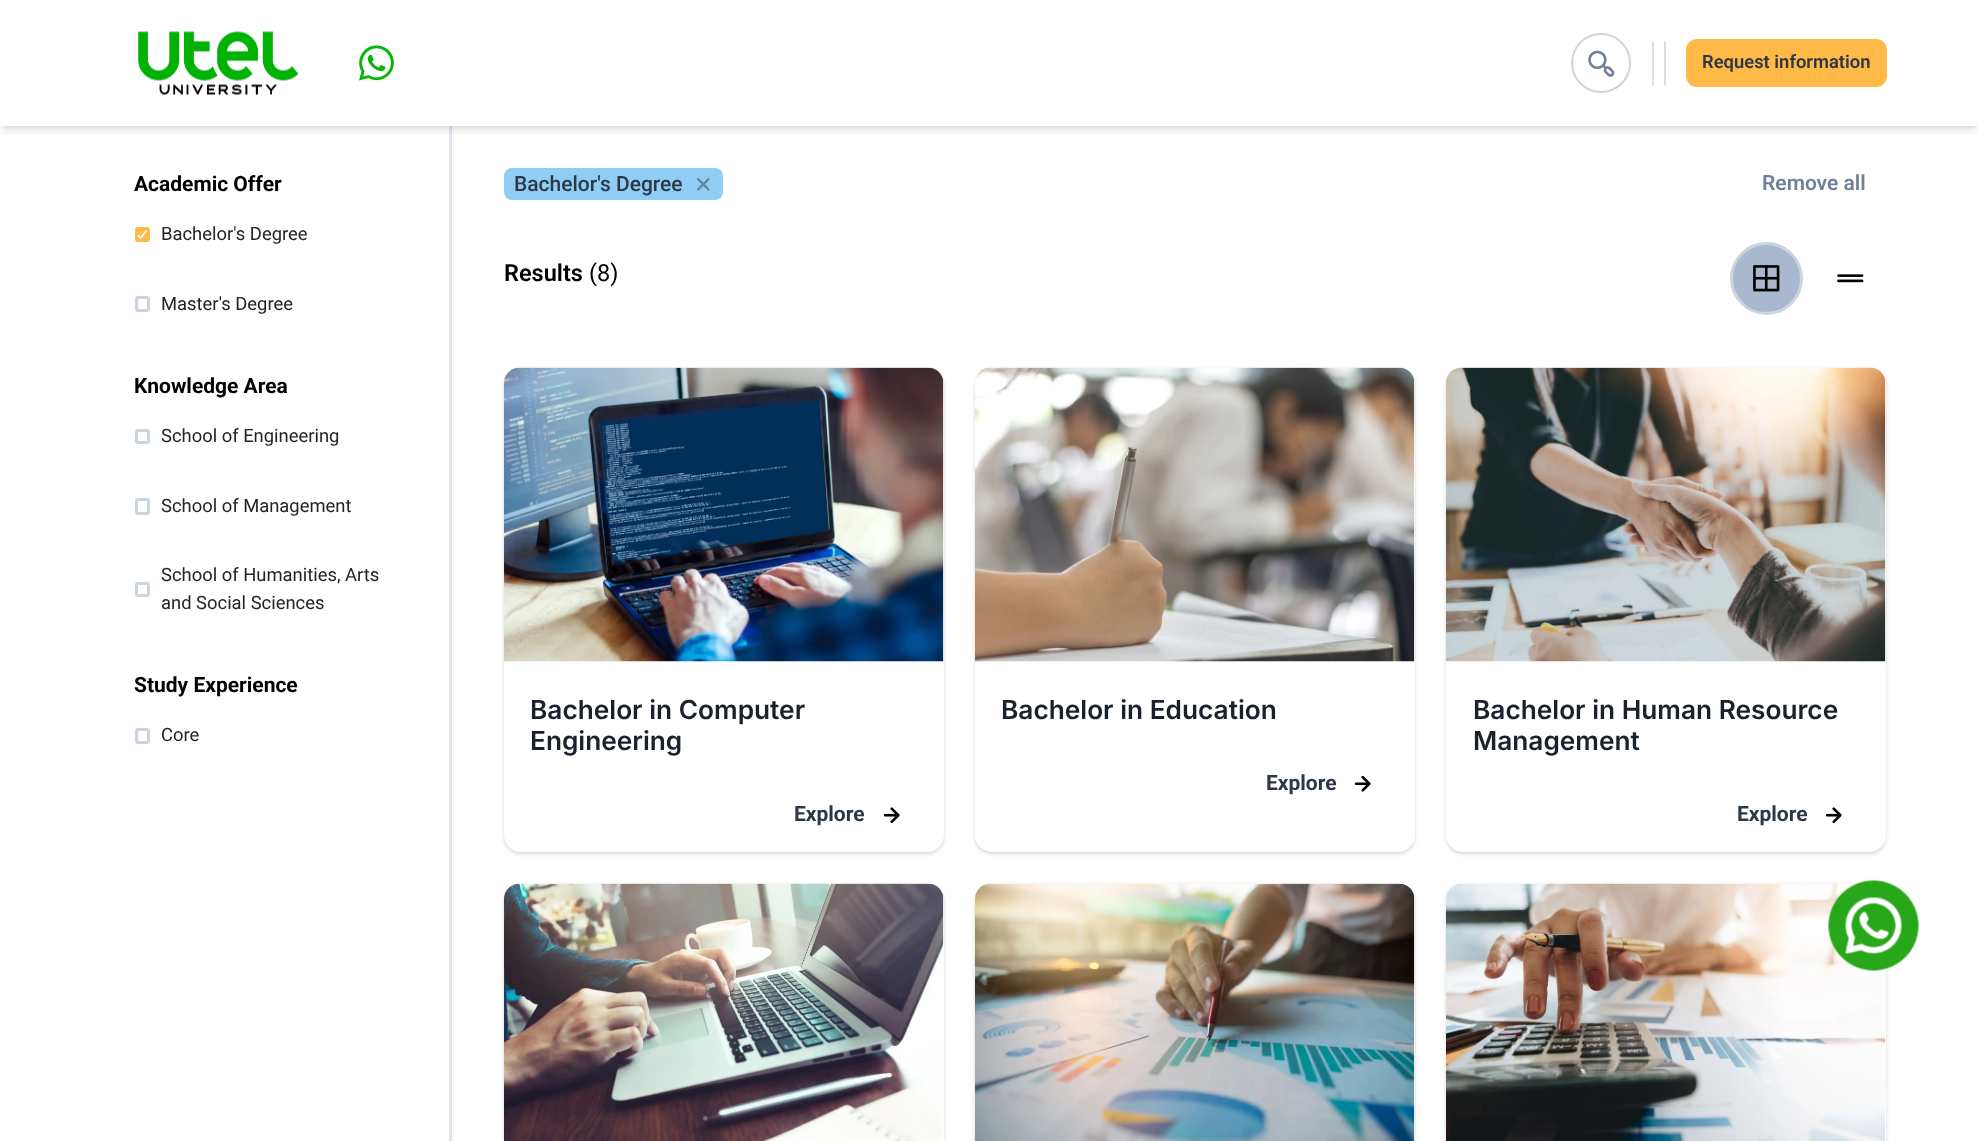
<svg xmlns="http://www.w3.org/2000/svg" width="1978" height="1141">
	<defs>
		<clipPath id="clip1"><rect x="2" y="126" width="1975" height="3" /></clipPath>
		<clipPath id="clip2"><rect x="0" y="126" width="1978" height="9" /></clipPath>
	</defs>
	<rect width="100%" height="100%" fill="#FFFFFF" />
	<rect x="450" y="126" width="2" height="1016" rx="1" fill="#D9E0E9" />
	<rect x="449" y="126" width="2" height="1015" fill="#E2E8F0" />
	<g clip-path="url(#clip1)">
		<rect x="2" y="5" width="1975" height="123" fill="#000000" fill-opacity="0.06" filter="blur(3px)" />
	</g>
	<g clip-path="url(#clip2)">
		<rect x="2" y="8" width="1975" height="123" fill="#000000" fill-opacity="0.1" filter="blur(4.5px)" />
	</g>
	<image x="138" y="31" width="161" height="64" href="assets/img1.png" />
	<image x="359" y="45" width="35" height="36" href="assets/img2.png" />
	<circle cx="1601" cy="63" r="29" fill="none" stroke="#CBD5E0" stroke-width="2" />
	<image x="1588" y="50" width="27" height="27" href="assets/img3.png" />
	<rect x="1652" y="41" width="2" height="45" rx="1" fill="#D9E0E9" />
	<rect x="1664" y="41" width="2" height="45" rx="1" fill="#D9E0E9" />
	<rect x="1686" y="39" width="201" height="48" rx="11" fill="#FFB947" />
	<text x="1702" y="68" font-family="Roboto" font-size="18.4" font-weight="600" fill="#2D3748">Request information</text>
	<text x="134" y="191" font-family="Roboto" font-size="21" font-weight="700" fill="#000000">Academic Offer</text>
	<rect x="136.5" y="228.5" width="12" height="12" rx="1.5" fill="#FFB947" stroke="#FFB947" stroke-width="3" />
	<path d="M138 235L140.5 238L146.5 230.5" fill="none" stroke="#FFFFFF" stroke-width="1.9" />
	<text x="161" y="240" font-family="Roboto" font-size="18.4" fill="#212529">Bachelor's Degree</text>
	<rect x="136.5" y="297.5" width="12" height="13" rx="1.5" fill="none" stroke="#CBD5E0" stroke-width="3" />
	<text x="161" y="310" font-family="Roboto" font-size="18.4" fill="#212529">Master's Degree</text>
	<text x="134" y="393" font-family="Roboto" font-size="21" font-weight="700" fill="#000000">Knowledge Area</text>
	<rect x="136.5" y="430.5" width="12" height="12" rx="1.5" fill="none" stroke="#CBD5E0" stroke-width="3" />
	<text x="161" y="442" font-family="Roboto" font-size="18.4" fill="#212529">School of Engineering</text>
	<rect x="136.5" y="499.5" width="12" height="14" rx="1.5" fill="none" stroke="#CBD5E0" stroke-width="3" />
	<text x="161" y="512" font-family="Roboto" font-size="18.4" fill="#212529">School of Management</text>
	<rect x="136.5" y="583.5" width="12" height="12" rx="1.5" fill="none" stroke="#CBD5E0" stroke-width="3" />
	<g font-family="Roboto" font-size="18.4" fill="#212529">
		<text x="161" y="581">School of Humanities, Arts</text>
		<text x="161" y="609">and Social Sciences</text>
	</g>
	<text x="134" y="692" font-family="Roboto" font-size="21" font-weight="700" fill="#000000">Study Experience</text>
	<rect x="136.5" y="729.5" width="12" height="13" rx="1.5" fill="none" stroke="#CBD5E0" stroke-width="3" />
	<text x="161" y="741" font-family="Roboto" font-size="18.4" fill="#212529">Core</text>
	<rect x="504" y="168" width="219" height="32" rx="8" fill="#90CDF4" />
	<text x="514" y="191" font-family="Roboto" font-size="21" font-weight="500" fill="#2D3748">Bachelor's Degree</text>
	<image x="697" y="178" width="13" height="13" href="assets/img4.png" />
	<text x="1762" y="190" font-family="Roboto" font-size="21" font-weight="600" fill="#718096">Remove all</text>
	<text x="504" y="281" font-family="Roboto" font-size="23.5" font-weight="600" fill="#000000">Results</text>
	<text x="589" y="281" font-family="Roboto" font-size="23.5" fill="#000000">(8)</text>
	<circle cx="1766.5" cy="278.5" r="35" fill="#A9B8CE" stroke="#CBD5E0" stroke-width="3" />
	<image x="1753" y="265" width="27" height="27" href="assets/img5.png" />
	<image x="1837" y="274" width="27" height="9" href="assets/img6.png" />
	<rect x="504" y="369" width="440" height="485" rx="17" fill="#000000" fill-opacity="0.06" filter="blur(1.5px)" />
	<rect x="504" y="369" width="440" height="485" rx="17" fill="#000000" fill-opacity="0.1" filter="blur(2px)" />
	<rect x="504" y="368" width="440" height="484" rx="17" fill="#FFFFFF" />
	<image x="504" y="367" width="440" height="295" href="assets/img7.png" />
	<g font-family="Inter" font-size="26.25" font-weight="600" fill="#1A202C">
		<text x="530" y="719">Bachelor in Computer</text>
		<text x="530" y="750">Engineering</text>
	</g>
	<text x="794" y="821" font-family="Roboto" font-size="21" font-weight="700" fill="#2D3748">Explore</text>
	<image x="883" y="807" width="17" height="17" href="assets/img8.png" />
	<rect x="975" y="369" width="440" height="485" rx="17" fill="#000000" fill-opacity="0.06" filter="blur(1.5px)" />
	<rect x="975" y="369" width="440" height="485" rx="17" fill="#000000" fill-opacity="0.1" filter="blur(2px)" />
	<rect x="975" y="368" width="440" height="484" rx="17" fill="#FFFFFF" />
	<image x="975" y="367" width="440" height="295" href="assets/img9.png" />
	<text x="1001" y="719" font-family="Inter" font-size="26.25" font-weight="600" fill="#1A202C">Bachelor in Education</text>
	<text x="1266" y="790" font-family="Roboto" font-size="21" font-weight="700" fill="#2D3748">Explore</text>
	<image x="1354" y="775" width="17" height="17" href="assets/img10.png" />
	<rect x="1446" y="369" width="440" height="485" rx="17" fill="#000000" fill-opacity="0.06" filter="blur(1.5px)" />
	<rect x="1446" y="369" width="440" height="485" rx="17" fill="#000000" fill-opacity="0.1" filter="blur(2px)" />
	<rect x="1446" y="368" width="440" height="484" rx="17" fill="#FFFFFF" />
	<image x="1446" y="367" width="440" height="295" href="assets/img11.png" />
	<g font-family="Inter" font-size="26.25" font-weight="600" fill="#1A202C">
		<text x="1473" y="719">Bachelor in Human Resource</text>
		<text x="1473" y="750">Management</text>
	</g>
	<text x="1737" y="821" font-family="Roboto" font-size="21" font-weight="700" fill="#2D3748">Explore</text>
	<image x="1825" y="807" width="17" height="17" href="assets/img8.png" />
	<rect x="504" y="885" width="440" height="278" rx="17" fill="#000000" fill-opacity="0.06" filter="blur(1.5px)" />
	<rect x="504" y="885" width="440" height="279" rx="17" fill="#000000" fill-opacity="0.1" filter="blur(2px)" />
	<rect x="504" y="884" width="440" height="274" rx="17" fill="#FFFFFF" />
	<image x="504" y="883" width="440" height="258" href="assets/img12.png" />
	<rect x="975" y="885" width="440" height="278" rx="17" fill="#000000" fill-opacity="0.06" filter="blur(1.5px)" />
	<rect x="975" y="885" width="440" height="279" rx="17" fill="#000000" fill-opacity="0.1" filter="blur(2px)" />
	<rect x="975" y="884" width="440" height="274" rx="17" fill="#FFFFFF" />
	<image x="975" y="883" width="440" height="258" href="assets/img13.png" />
	<rect x="1446" y="885" width="440" height="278" rx="17" fill="#000000" fill-opacity="0.06" filter="blur(1.5px)" />
	<rect x="1446" y="885" width="440" height="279" rx="17" fill="#000000" fill-opacity="0.1" filter="blur(2px)" />
	<rect x="1446" y="884" width="440" height="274" rx="17" fill="#FFFFFF" />
	<image x="1446" y="883" width="440" height="258" href="assets/img14.png" />
	<image x="1828" y="880" width="91" height="91" href="assets/img15.png" />
</svg>
